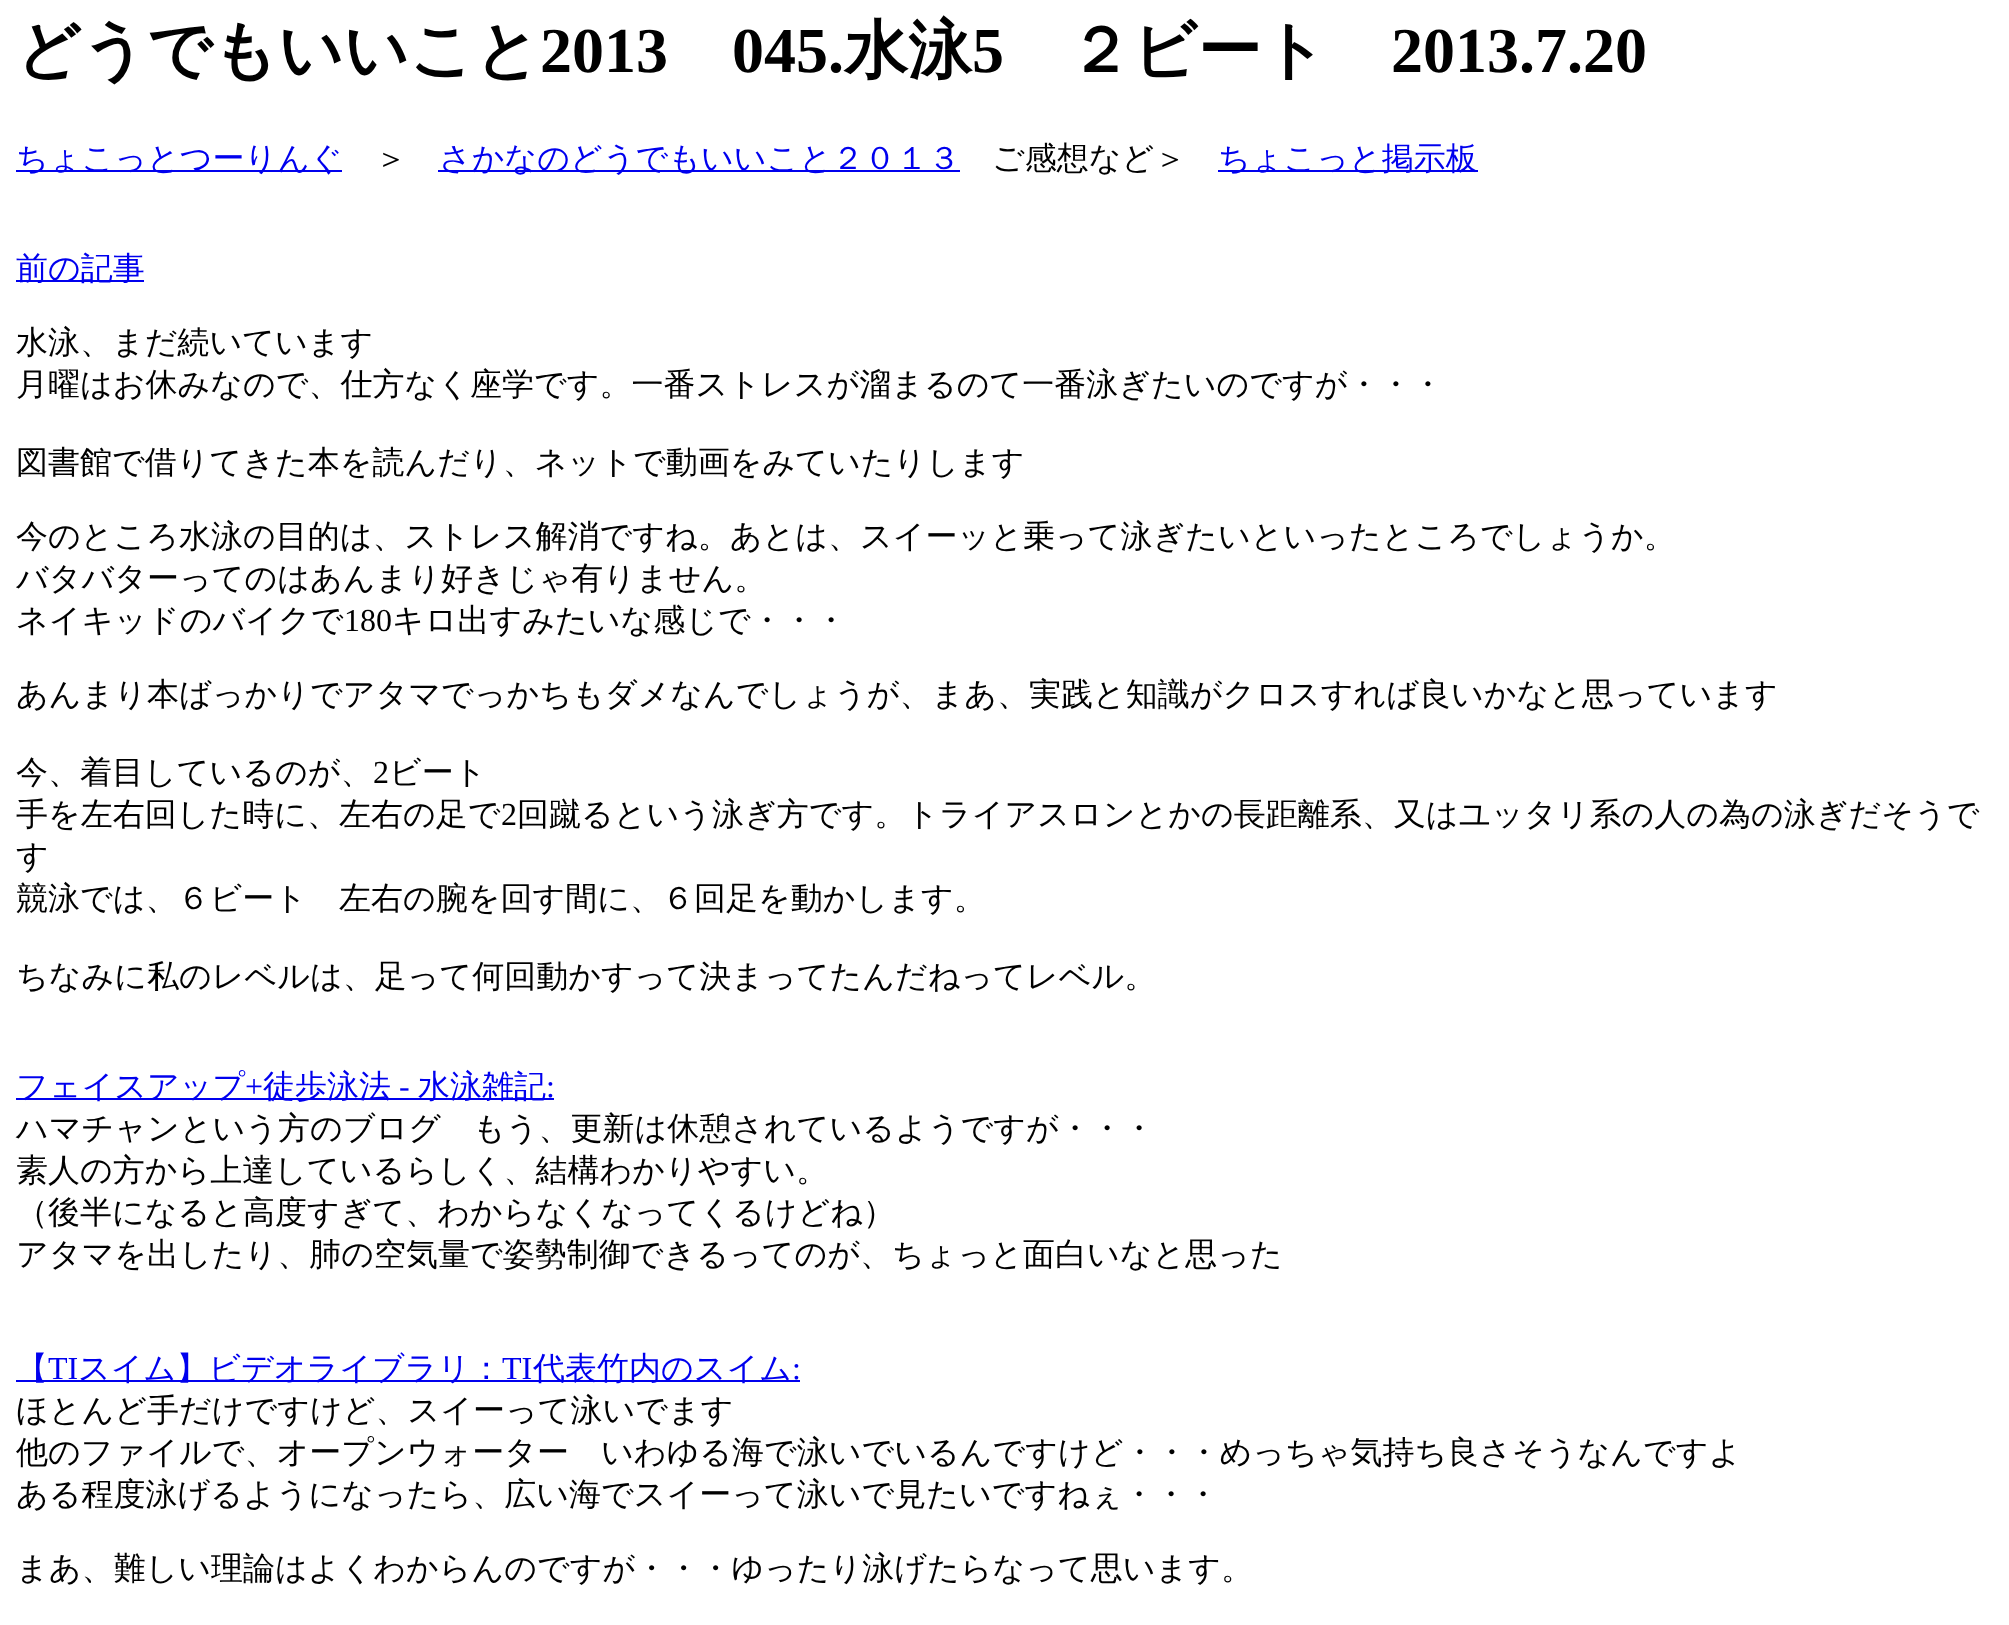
<svg xmlns="http://www.w3.org/2000/svg" width="2009" height="1625">
	<rect width="100%" height="100%" fill="#FFFFFF" />
	<text x="16" y="72" font-family="WenQuanYi Zen Hei" font-size="64" font-weight="700" fill="#000000">どうでもいいこと</text>
	<g font-family="Liberation Serif" font-size="64" font-weight="700" fill="#000000">
		<text x="540" y="72">2013</text>
		<text x="732" y="72">045.</text>
	</g>
	<text x="844" y="72" font-family="WenQuanYi Zen Hei" font-size="64" font-weight="700" fill="#000000">水泳</text>
	<text x="972" y="72" font-family="Liberation Serif" font-size="64" font-weight="700" fill="#000000">5</text>
	<text x="1068" y="72" font-family="WenQuanYi Zen Hei" font-size="64" font-weight="700" fill="#000000">２ビート</text>
	<text x="1391" y="72" font-family="Liberation Serif" font-size="64" font-weight="700" fill="#000000">2013.7.20</text>
	<rect x="16" y="170" width="326" height="2" fill="#0000EE" />
	<text x="16" y="169" font-family="WenQuanYi Zen Hei" font-size="32" font-weight="500" fill="#0000EE">ちょこっとつーりんぐ</text>
	<text x="375" y="169" font-family="WenQuanYi Zen Hei" font-size="32" font-weight="500" fill="#000000">＞</text>
	<rect x="438" y="170" width="522" height="2" fill="#0000EE" />
	<text x="439" y="169" font-family="WenQuanYi Zen Hei" font-size="32" font-weight="500" fill="#0000EE">さかなのどうでもいいこと２０１３</text>
	<text x="992" y="169" font-family="WenQuanYi Zen Hei" font-size="32" font-weight="500" fill="#000000">ご感想など＞</text>
	<rect x="1218" y="170" width="260" height="2" fill="#0000EE" />
	<text x="1218" y="169" font-family="WenQuanYi Zen Hei" font-size="32" font-weight="500" fill="#0000EE">ちょこっと掲示板</text>
	<rect x="16" y="280" width="128" height="2" fill="#0000EE" />
	<text x="16" y="279" font-family="WenQuanYi Zen Hei" font-size="32" font-weight="500" fill="#0000EE">前の記事</text>
	<g font-family="WenQuanYi Zen Hei" font-size="32" font-weight="500" fill="#000000">
		<text x="16" y="353">水泳、まだ続いています</text>
		<text x="16" y="395">月曜はお休みなので、仕方なく座学です。一番ストレスが溜まるのて一番泳ぎたいのですが・・・</text>
		<text x="16" y="473">図書館で借りてきた本を読んだり、ネットで動画をみていたりします</text>
		<text x="16" y="547">今のところ水泳の目的は、ストレス解消ですね。あとは、スイーッと乗って泳ぎたいといったところでしょうか。</text>
		<text x="16" y="589">バタバターってのはあんまり好きじゃ有りません。</text>
		<text x="16" y="631">ネイキッドのバイクで</text>
	</g>
	<text x="344" y="631" font-family="Liberation Serif" font-size="32" fill="#000000">180</text>
	<g font-family="WenQuanYi Zen Hei" font-size="32" font-weight="500" fill="#000000">
		<text x="392" y="631">キロ出すみたいな感じで・・・</text>
		<text x="16" y="705">あんまり本ばっかりでアタマでっかちもダメなんでしょうが、まあ、実践と知識がクロスすれば良いかなと思っています</text>
		<text x="16" y="783">今、着目しているのが、</text>
	</g>
	<text x="373" y="783" font-family="Liberation Serif" font-size="32" fill="#000000">2</text>
	<g font-family="WenQuanYi Zen Hei" font-size="32" font-weight="500" fill="#000000">
		<text x="389" y="783">ビート</text>
		<text x="16" y="825">手を左右回した時に、左右の足で</text>
	</g>
	<text x="501" y="825" font-family="Liberation Serif" font-size="32" fill="#000000">2</text>
	<g font-family="WenQuanYi Zen Hei" font-size="32" font-weight="500" fill="#000000">
		<text x="517" y="825">回蹴るという泳ぎ方です。トライアスロンとかの長距離系、又はユッタリ系の人の為の泳ぎだそうで</text>
		<text x="16" y="867">す</text>
		<text x="16" y="909">競泳では、６ビート　左右の腕を回す間に、６回足を動かします。</text>
		<text x="16" y="987">ちなみに私のレベルは、足って何回動かすって決まってたんだねってレベル。</text>
	</g>
	<rect x="16" y="1098" width="538" height="2" fill="#0000EE" />
	<text x="16" y="1097" font-family="WenQuanYi Zen Hei" font-size="32" font-weight="500" fill="#0000EE">フェイスアップ</text>
	<text x="245" y="1097" font-family="Liberation Serif" font-size="32" fill="#0000EE">+</text>
	<text x="263" y="1097" font-family="WenQuanYi Zen Hei" font-size="32" font-weight="500" fill="#0000EE">徒歩泳法</text>
	<text x="399" y="1097" font-family="Liberation Serif" font-size="32" fill="#0000EE">-</text>
	<text x="418" y="1097" font-family="WenQuanYi Zen Hei" font-size="32" font-weight="500" fill="#0000EE">水泳雑記</text>
	<text x="546" y="1097" font-family="Liberation Serif" font-size="32" fill="#0000EE">:</text>
	<g font-family="WenQuanYi Zen Hei" font-size="32" font-weight="500" fill="#000000">
		<text x="16" y="1139">ハマチャンという方のブログ　もう、更新は休憩されているようですが・・・</text>
		<text x="16" y="1181">素人の方から上達しているらしく、結構わかりやすい。</text>
		<text x="16" y="1223">（後半になると高度すぎて、わからなくなってくるけどね）</text>
		<text x="16" y="1265">アタマを出したり、肺の空気量で姿勢制御できるってのが、ちょっと面白いなと思った</text>
	</g>
	<rect x="16" y="1380" width="784" height="2" fill="#0000EE" />
	<text x="16" y="1379" font-family="WenQuanYi Zen Hei" font-size="32" font-weight="500" fill="#0000EE">【</text>
	<text x="48" y="1379" font-family="Liberation Serif" font-size="32" fill="#0000EE">TI</text>
	<text x="78" y="1379" font-family="WenQuanYi Zen Hei" font-size="32" font-weight="500" fill="#0000EE">スイム】ビデオライブラリ：</text>
	<text x="502" y="1379" font-family="Liberation Serif" font-size="32" fill="#0000EE">TI</text>
	<text x="533" y="1379" font-family="WenQuanYi Zen Hei" font-size="32" font-weight="500" fill="#0000EE">代表竹内のスイム</text>
	<text x="792" y="1379" font-family="Liberation Serif" font-size="32" fill="#0000EE">:</text>
	<g font-family="WenQuanYi Zen Hei" font-size="32" font-weight="500" fill="#000000">
		<text x="16" y="1421">ほとんど手だけですけど、スイーって泳いでます</text>
		<text x="16" y="1463">他のファイルで、オープンウォーター　いわゆる海で泳いでいるんですけど・・・めっちゃ気持ち良さそうなんですよ</text>
		<text x="16" y="1505">ある程度泳げるようになったら、広い海でスイーって泳いで見たいですねぇ・・・</text>
		<text x="16" y="1579">まあ、難しい理論はよくわからんのですが・・・ゆったり泳げたらなって思います。</text>
	</g>
</svg>
